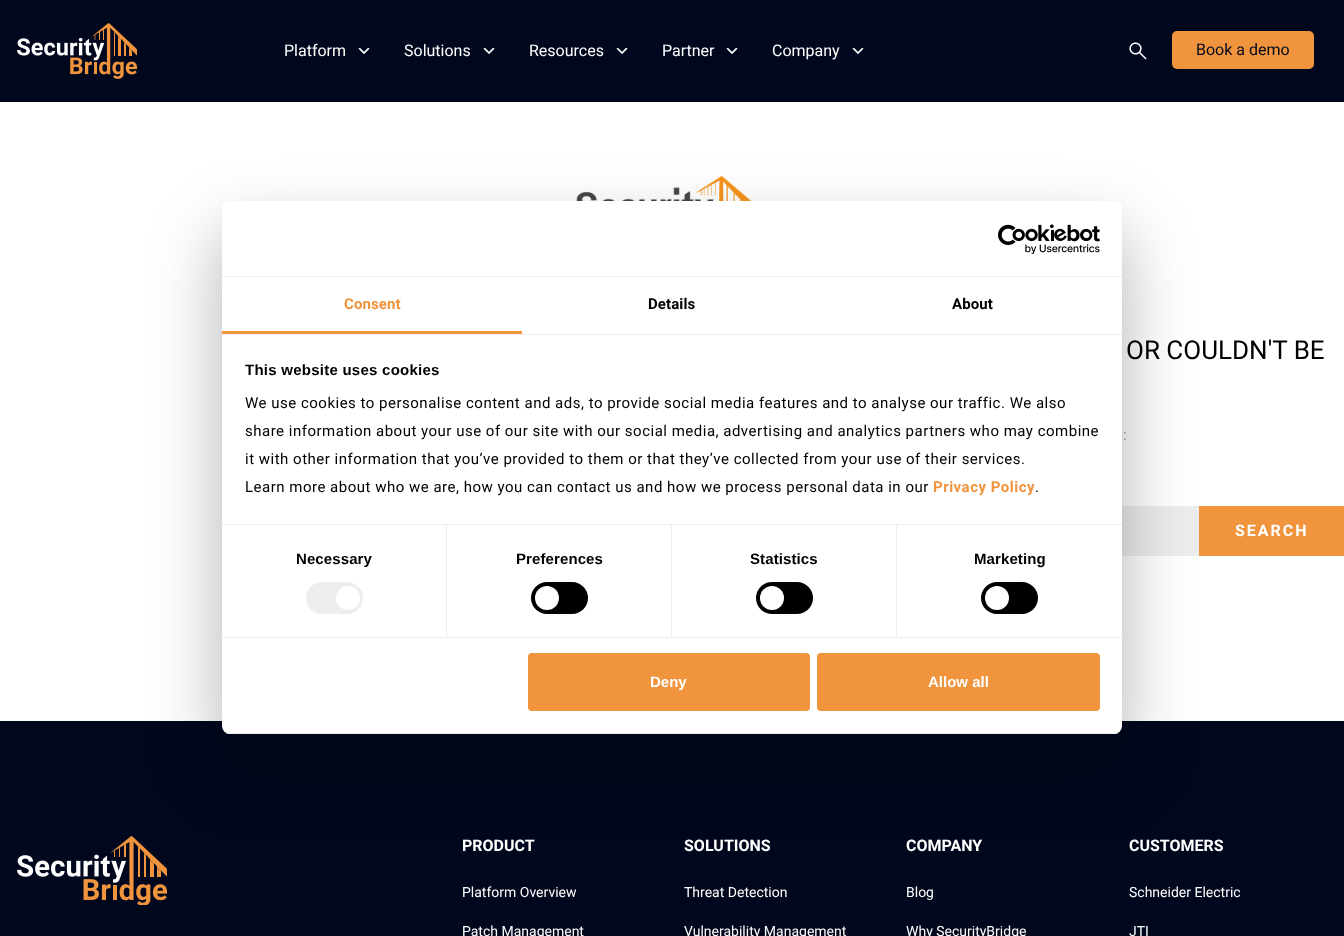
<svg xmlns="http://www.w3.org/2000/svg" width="1344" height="936">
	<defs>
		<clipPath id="clip1"><rect x="222" y="201" width="900" height="533" rx="8" /></clipPath>
	</defs>
	<rect width="100%" height="100%" fill="#FFFFFF" />
	<rect x="0" y="0" width="1344" height="102" fill="#01081D" />
	<image x="17" y="23" width="120" height="56" href="assets/img1.png" />
	<text x="284" y="56" font-family="Roboto" font-size="16" fill="#FFFFFF">Platform</text>
	<image x="358" y="47" width="12" height="7" href="assets/img2.png" />
	<text x="404" y="56" font-family="Roboto" font-size="16" fill="#FFFFFF">Solutions</text>
	<image x="483" y="47" width="12" height="7" href="assets/img2.png" />
	<text x="529" y="56" font-family="Roboto" font-size="16" fill="#FFFFFF">Resources</text>
	<image x="616" y="47" width="12" height="7" href="assets/img2.png" />
	<text x="662" y="56" font-family="Roboto" font-size="16" fill="#FFFFFF">Partner</text>
	<image x="726" y="47" width="12" height="7" href="assets/img2.png" />
	<text x="772" y="56" font-family="Roboto" font-size="16" fill="#FFFFFF">Company</text>
	<image x="852" y="47" width="12" height="7" href="assets/img2.png" />
	<image x="1129" y="42" width="18" height="18" href="assets/img3.png" />
	<rect x="1172" y="31" width="142" height="38" rx="5" fill="#F1943E" />
	<text x="1196" y="55" font-family="Roboto" font-size="16" fill="#01081D">Book a demo</text>
	<image x="576" y="175" width="176" height="26" href="assets/img5.png" />
	<rect x="1122" y="506" width="77" height="50" fill="#EDEDED" />
	<rect x="1199" y="506" width="145" height="50" fill="#F1943E" />
	<rect x="0" y="721" width="1344" height="215" fill="#01081D" />
	<image x="17" y="836" width="150" height="69" href="assets/img6.png" />
	<rect x="222" y="233" width="900" height="533" rx="8" fill="#000000" fill-opacity="0.3" filter="blur(34px)" />
	<rect x="222" y="201" width="900" height="533" rx="8" fill="#FFFFFF" />
	<rect x="222" y="276" width="900" height="1" fill="#EDEDED" />
	<image x="998" y="224" width="102" height="30" href="assets/img4.png" />
	<rect x="222" y="334" width="900" height="1" fill="#EDEDED" />
	<rect x="222" y="331" width="300" height="3" fill="#F1943E" />
	<text x="344" y="309" font-family="Roboto" font-size="15" font-weight="700" letter-spacing="0.1" fill="#F1943E">Consent</text>
	<g font-family="Roboto" font-size="15" font-weight="700" letter-spacing="0.1" fill="#000000">
		<text x="648" y="309">Details</text>
		<text x="952" y="309">About</text>
	</g>
	<rect x="222" y="524" width="900" height="1" fill="#EDEDED" />
	<text x="245" y="375" font-family="Liberation Sans" font-size="15" font-weight="700" letter-spacing="0.25" fill="#000000">This website uses cookies</text>
	<g font-family="Roboto" font-size="15" letter-spacing="0.5" fill="#000000">
		<text x="245" y="408">We use cookies to personalise content and ads, to provide social media features and to analyse our traffic. We also</text>
		<text x="245" y="436">share information about your use of our site with our social media, advertising and analytics partners who may combine</text>
		<text x="245" y="464">it with other information that you’ve provided to them or that they’ve collected from your use of their services.</text>
		<text x="245" y="492">Learn more about who we are, how you can contact us and how we process personal data in our</text>
	</g>
	<text x="933" y="492" font-family="Roboto" font-size="15" font-weight="700" letter-spacing="0.5" fill="#F1943E">Privacy Policy</text>
	<text x="1035" y="492" font-family="Roboto" font-size="15" letter-spacing="0.5" fill="#000000">.</text>
	<rect x="222" y="637" width="900" height="1" fill="#EDEDED" />
	<rect x="446" y="525" width="1" height="112" fill="#EDEDED" />
	<text x="296" y="564" font-family="Liberation Sans" font-size="15" font-weight="700" letter-spacing="0.1" fill="#000000">Necessary</text>
	<rect x="306" y="582" width="57" height="32" rx="16" fill="#EDEDED" />
	<circle cx="348" cy="598" r="12" fill="#FFFFFF" />
	<rect x="671" y="525" width="1" height="112" fill="#EDEDED" />
	<text x="516" y="564" font-family="Liberation Sans" font-size="15" font-weight="700" letter-spacing="0.1" fill="#000000">Preferences</text>
	<rect x="531" y="582" width="57" height="32" rx="16" fill="#000000" />
	<circle cx="547" cy="598" r="12" fill="#FFFFFF" />
	<rect x="896" y="525" width="1" height="112" fill="#EDEDED" />
	<text x="750" y="564" font-family="Liberation Sans" font-size="15" font-weight="700" letter-spacing="0.1" fill="#000000">Statistics</text>
	<rect x="756" y="582" width="57" height="32" rx="16" fill="#000000" />
	<circle cx="772" cy="598" r="12" fill="#FFFFFF" />
	<text x="974" y="564" font-family="Liberation Sans" font-size="15" font-weight="700" letter-spacing="0.1" fill="#000000">Marketing</text>
	<rect x="981" y="582" width="57" height="32" rx="16" fill="#000000" />
	<circle cx="997" cy="598" r="12" fill="#FFFFFF" />
	<g clip-path="url(#clip1)">
		<rect x="222" y="733" width="900" height="1" fill="#EDEDED" />
	</g>
	<rect x="529" y="654" width="280" height="56" rx="3" fill="#F1943E" stroke="#F1943E" stroke-width="2" />
	<text x="650" y="687" font-family="Liberation Sans" font-size="15" font-weight="700" fill="#FFFFFF">Deny</text>
	<rect x="818" y="654" width="281" height="56" rx="3" fill="#F1943E" stroke="#F1943E" stroke-width="2" />
	<text x="928" y="687" font-family="Liberation Sans" font-size="15" font-weight="700" fill="#FFFFFF">Allow all</text>
	<text x="1126" y="359" font-family="Roboto" font-size="26" fill="#000000">OR COULDN'T BE</text>
	<text x="1123" y="440" font-family="Roboto" font-size="15" fill="#8C8C8C">:</text>
	<text x="1235" y="536" font-family="Roboto" font-size="16" font-weight="700" letter-spacing="2" fill="#FFFFFF">SEARCH</text>
	<text x="462" y="851" font-family="Roboto" font-size="16" font-weight="700" fill="#FFFFFF">PRODUCT</text>
	<g font-family="Roboto" font-size="14" fill="#FFFFFF">
		<text x="462" y="897">Platform Overview</text>
		<text x="462" y="936">Patch Management</text>
	</g>
	<text x="684" y="851" font-family="Roboto" font-size="16" font-weight="700" fill="#FFFFFF">SOLUTIONS</text>
	<g font-family="Roboto" font-size="14" fill="#FFFFFF">
		<text x="684" y="897">Threat Detection</text>
		<text x="684" y="936">Vulnerability Management</text>
	</g>
	<text x="906" y="851" font-family="Roboto" font-size="16" font-weight="700" fill="#FFFFFF">COMPANY</text>
	<g font-family="Roboto" font-size="14" fill="#FFFFFF">
		<text x="906" y="897">Blog</text>
		<text x="906" y="936">Why SecurityBridge</text>
	</g>
	<text x="1129" y="851" font-family="Roboto" font-size="16" font-weight="700" fill="#FFFFFF">CUSTOMERS</text>
	<g font-family="Roboto" font-size="14" fill="#FFFFFF">
		<text x="1129" y="897">Schneider Electric</text>
		<text x="1129" y="936">JTI</text>
	</g>
</svg>
